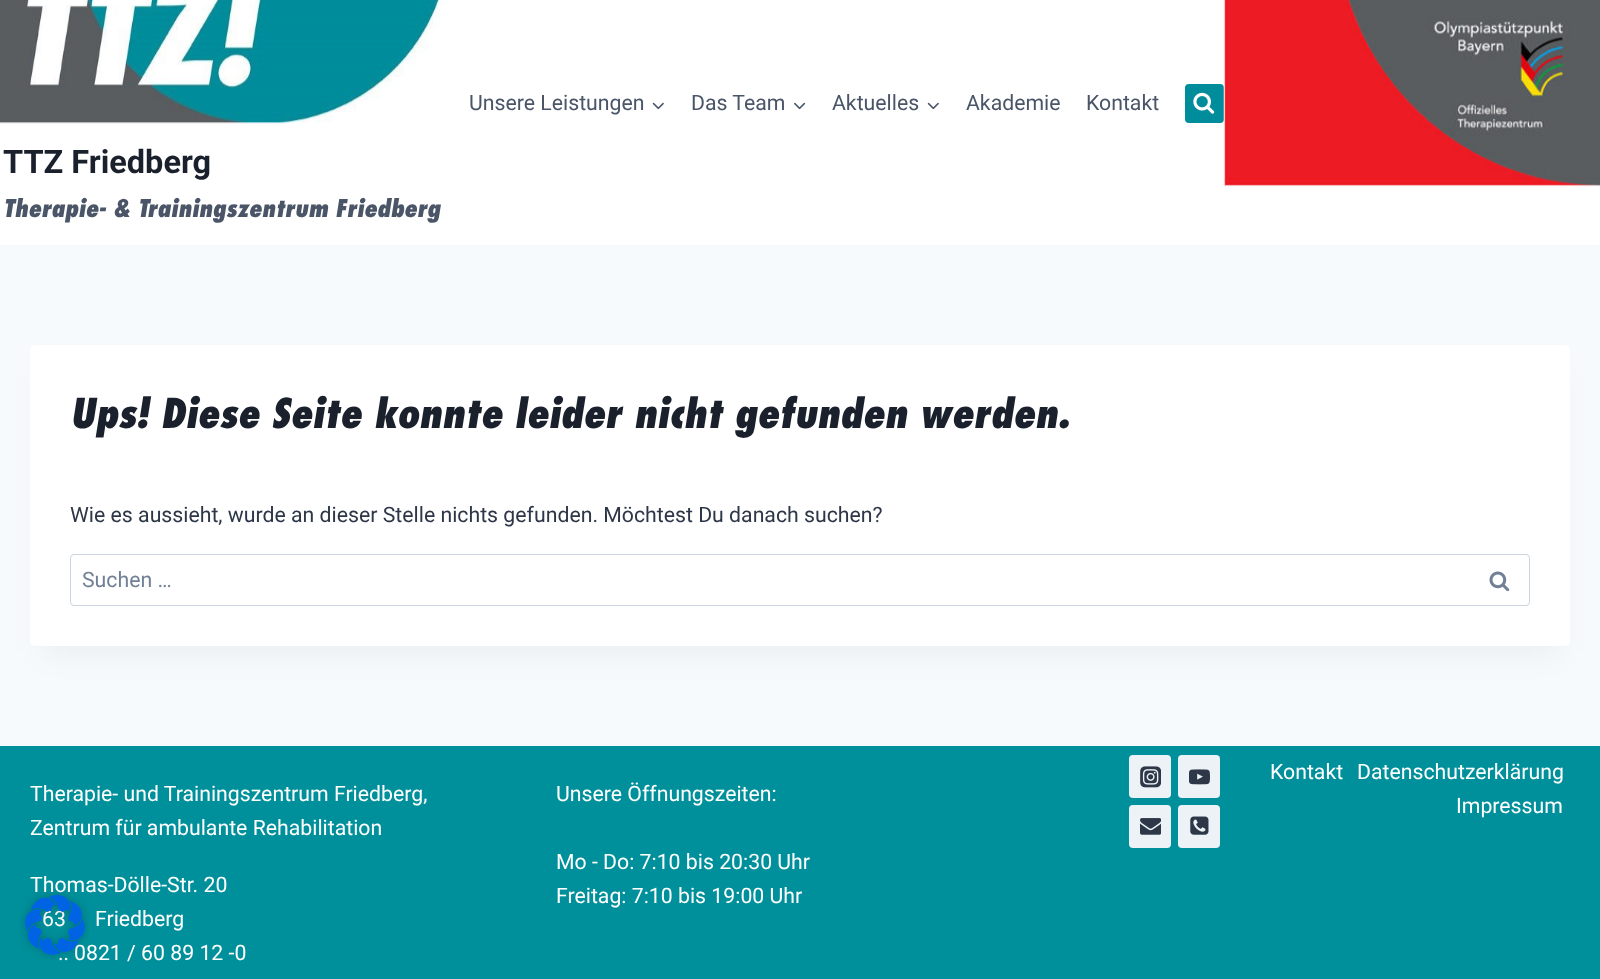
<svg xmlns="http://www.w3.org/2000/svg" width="1600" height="979">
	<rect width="100%" height="100%" fill="#F7FAFC" />
	<rect x="0" y="0" width="1600" height="245" fill="#FFFFFF" />
	<text x="469" y="110" font-family="Roboto" font-size="21.25" fill="#4A5568">Unsere Leistungen</text>
	<image x="652" y="102" width="12" height="8" href="assets/img1.png" />
	<text x="691" y="110" font-family="Roboto" font-size="21.25" fill="#4A5568">Das Team</text>
	<image x="794" y="102" width="12" height="8" href="assets/img2.png" />
	<text x="832" y="110" font-family="Roboto" font-size="21.25" fill="#4A5568">Aktuelles</text>
	<image x="927" y="102" width="12" height="8" href="assets/img1.png" />
	<g font-family="Roboto" font-size="21.25" fill="#4A5568">
		<text x="966" y="110">Akademie</text>
		<text x="1086" y="110">Kontakt</text>
	</g>
	<rect x="1185" y="84" width="39" height="39" rx="4" fill="#008D9B" />
	<image x="1193" y="92" width="22" height="22" href="assets/img3.png" />
	<image x="1223" y="0" width="377" height="187" href="assets/img4.png" />
	<image x="0" y="0" width="444" height="124" href="assets/img5.png" />
	<text x="3" y="173" font-family="Roboto" font-size="32.5" font-weight="700" fill="#1A202C">TTZ Friedberg</text>
	<text x="3" y="217" font-family="Futura" font-size="23.75" font-weight="800" font-style="italic" fill="#4A5568">Therapie- &amp; Trainingszentrum Friedberg</text>
	<rect x="43" y="376" width="1515" height="277" fill="#000000" fill-opacity="0.05" filter="blur(15.5px)" />
	<rect x="30" y="345" width="1540" height="301" rx="5" fill="#FFFFFF" />
	<text x="70" y="428" font-family="Futura" font-size="40" font-weight="800" font-style="italic" fill="#1A202C">Ups! Diese Seite konnte leider nicht gefunden werden.</text>
	<text x="70" y="522" font-family="Roboto" font-size="21.25" fill="#2D3748">Wie es aussieht, wurde an dieser Stelle nichts gefunden. Möchtest Du danach suchen?</text>
	<rect x="70.5" y="554.5" width="1459" height="51" rx="3.5" fill="none" stroke="#CBD5E0" />
	<text x="82" y="587" font-family="Roboto" font-size="21.25" fill="#718096">Suchen …</text>
	<image x="1489" y="571" width="21" height="20" href="assets/img6.png" />
	<rect x="0" y="746" width="1600" height="233" fill="#00909B" />
	<g font-family="Roboto" font-size="21.25" fill="#FFFFFF">
		<text x="30" y="801">Therapie- und Trainingszentrum Friedberg,</text>
		<text x="30" y="835">Zentrum für ambulante Rehabilitation</text>
		<text x="30" y="892">Thomas-Dölle-Str. 20</text>
		<text x="42" y="926">63</text>
		<text x="95" y="926">Friedberg</text>
		<text x="58" y="960">.: 0821 / 60 89 12 -0</text>
		<text x="556" y="801">Unsere Öffnungszeiten:</text>
		<text x="556" y="869">Mo - Do: 7:10 bis 20:30 Uhr</text>
		<text x="556" y="903">Freitag: 7:10 bis 19:00 Uhr</text>
	</g>
	<rect x="1129" y="755" width="42" height="43" rx="4" fill="#EDF2F7" />
	<image x="1140" y="766" width="21" height="22" href="assets/img7.png" />
	<rect x="1178" y="755" width="42" height="43" rx="4" fill="#EDF2F7" />
	<image x="1189" y="769" width="21" height="16" href="assets/img8.png" />
	<rect x="1129" y="805" width="42" height="43" rx="4" fill="#EDF2F7" />
	<image x="1140" y="818" width="21" height="17" href="assets/img9.png" />
	<rect x="1178" y="805" width="42" height="43" rx="4" fill="#EDF2F7" />
	<image x="1190" y="816" width="19" height="19" href="assets/img10.png" />
	<g font-family="Roboto" font-size="21.25" fill="#FFFFFF">
		<text x="1270" y="779">Kontakt</text>
		<text x="1357" y="779">Datenschutzerklärung</text>
		<text x="1456" y="813">Impressum</text>
	</g>
	<image x="20" y="890" width="69" height="70" href="assets/img11.png" />
</svg>
